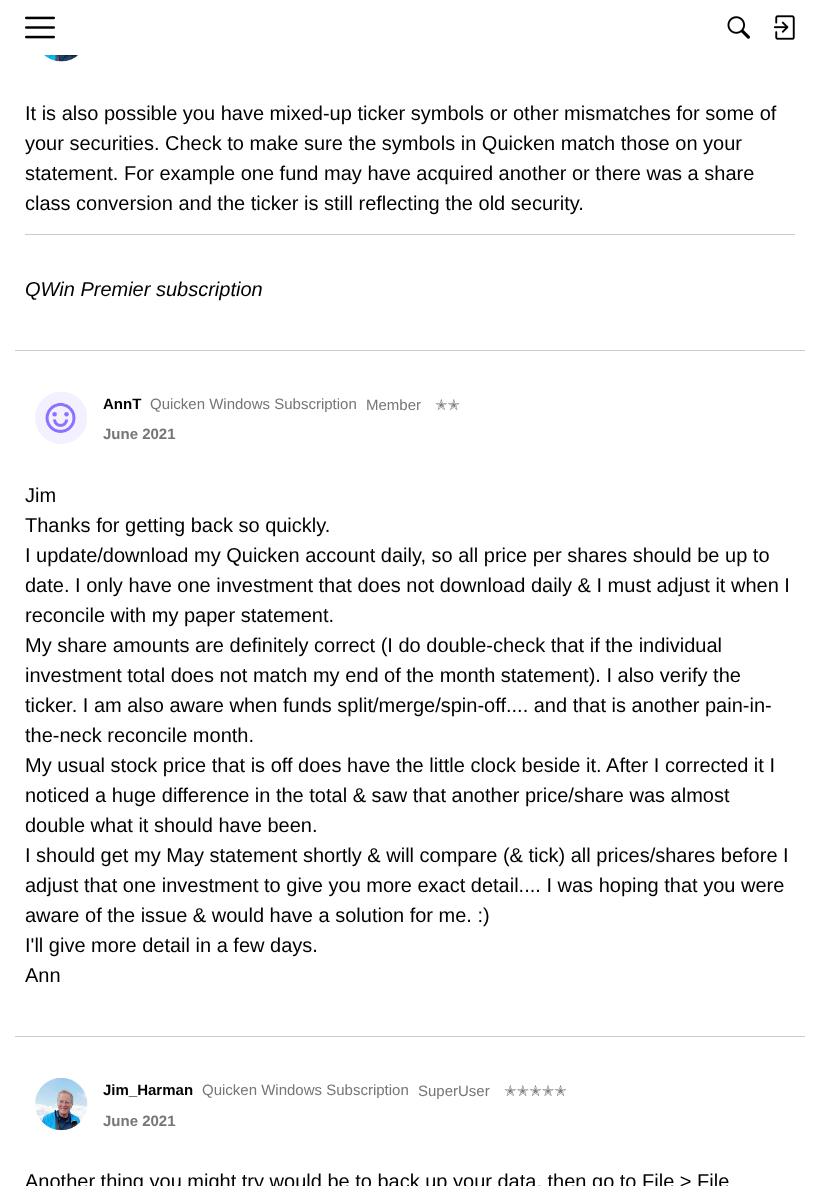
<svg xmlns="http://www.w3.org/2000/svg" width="820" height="1186">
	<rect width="100%" height="100%" fill="#FFFFFF" />
	<image x="25" y="16" width="30" height="23" href="assets/img1.png" />
	<image x="727" y="16" width="23" height="23" href="assets/img2.png" />
	<image x="773" y="15" width="22" height="25" href="assets/img3.png" />
	<image x="44" y="55" width="35" height="7" href="assets/img4.png" />
	<g font-family="Liberation Sans" font-size="20" fill="#000000">
		<text x="25" y="120">It is also possible you have mixed-up ticker symbols or other mismatches for some of</text>
		<text x="25" y="150">your securities. Check to make sure the symbols in Quicken match those on your</text>
		<text x="25" y="180">statement. For example one fund may have acquired another or there was a share</text>
		<text x="25" y="210">class conversion and the ticker is still reflecting the old security.</text>
	</g>
	<rect x="25" y="234" width="770" height="1" fill="#CCCCCC" />
	<text x="25" y="296" font-family="Liberation Sans" font-size="20" font-style="italic" fill="#000000">QWin Premier subscription</text>
	<rect x="15" y="350" width="790" height="1" fill="#CCCCCC" />
	<image x="35" y="392" width="52" height="52" href="assets/img5.png" />
	<text x="103" y="409" font-family="Liberation Sans" font-size="15" font-weight="700" fill="#000000">AnnT</text>
	<g font-family="Liberation Sans" font-size="15" fill="#767676">
		<text x="150" y="409">Quicken Windows Subscription</text>
		<text x="366" y="410">Member</text>
	</g>
	<text x="435" y="410" font-family="DejaVu Sans" font-size="15" fill="#767676">✭✭</text>
	<text x="103" y="439" font-family="Liberation Sans" font-size="15" font-weight="700" fill="#767676">June 2021</text>
	<g font-family="Liberation Sans" font-size="20" fill="#000000">
		<text x="25" y="502">Jim</text>
		<text x="25" y="532">Thanks for getting back so quickly.</text>
		<text x="25" y="562">I update/download my Quicken account daily, so all price per shares should be up to</text>
		<text x="25" y="592">date. I only have one investment that does not download daily &amp; I must adjust it when I</text>
		<text x="25" y="622">reconcile with my paper statement.</text>
		<text x="25" y="652">My share amounts are definitely correct (I do double-check that if the individual</text>
		<text x="25" y="682">investment total does not match my end of the month statement). I also verify the</text>
		<text x="25" y="712">ticker. I am also aware when funds split/merge/spin-off.... and that is another pain-in-</text>
		<text x="25" y="742">the-neck reconcile month.</text>
		<text x="25" y="772">My usual stock price that is off does have the little clock beside it. After I corrected it I</text>
		<text x="25" y="802">noticed a huge difference in the total &amp; saw that another price/share was almost</text>
		<text x="25" y="832">double what it should have been.</text>
		<text x="25" y="862">I should get my May statement shortly &amp; will compare (&amp; tick) all prices/shares before I</text>
		<text x="25" y="892">adjust that one investment to give you more exact detail.... I was hoping that you were</text>
		<text x="25" y="922">aware of the issue &amp; would have a solution for me. :)</text>
		<text x="25" y="952">I'll give more detail in a few days.</text>
		<text x="25" y="982">Ann</text>
	</g>
	<rect x="15" y="1036" width="790" height="1" fill="#CCCCCC" />
	<image x="35" y="1077" width="53" height="54" href="assets/img6.png" />
	<text x="103" y="1095" font-family="Liberation Sans" font-size="15" font-weight="700" fill="#000000">Jim_Harman</text>
	<g font-family="Liberation Sans" font-size="15" fill="#767676">
		<text x="202" y="1095">Quicken Windows Subscription</text>
		<text x="418" y="1096">SuperUser</text>
	</g>
	<text x="504" y="1096" font-family="DejaVu Sans" font-size="15" fill="#767676">✭✭✭✭✭</text>
	<text x="103" y="1126" font-family="Liberation Sans" font-size="15" font-weight="700" fill="#767676">June 2021</text>
	<text x="25" y="1188" font-family="Liberation Sans" font-size="20" fill="#000000">Another thing you might try would be to back up your data, then go to File &gt; File</text>
</svg>
